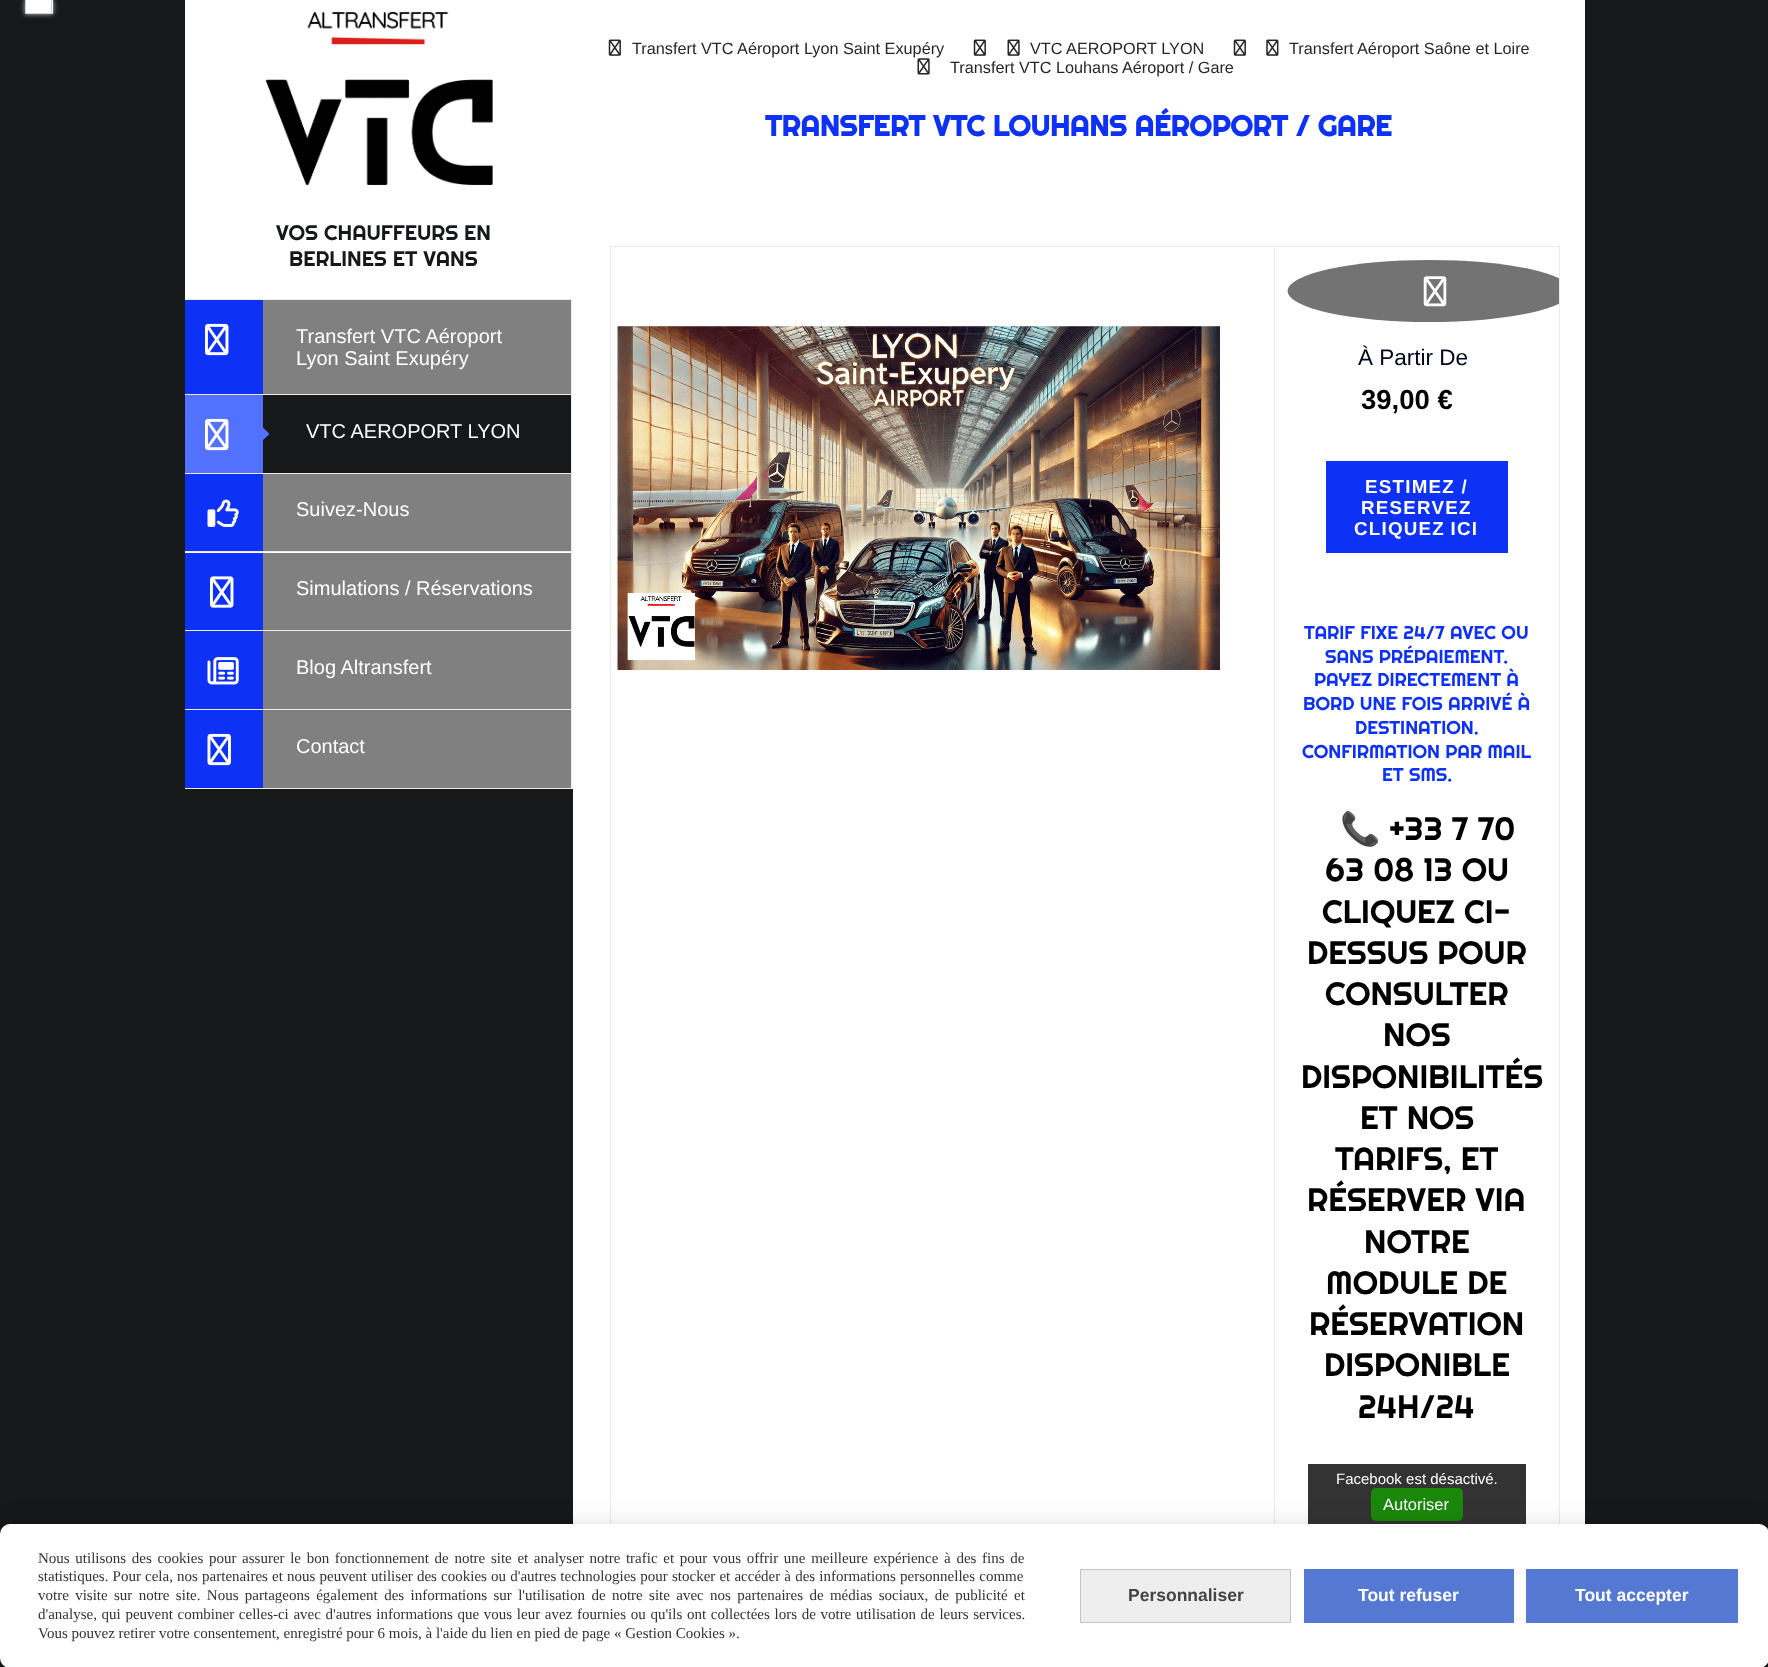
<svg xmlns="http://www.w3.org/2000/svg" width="1768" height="1667">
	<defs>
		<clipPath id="clip1"><rect x="1275" y="248" width="284" height="1380" /></clipPath>
	</defs>
	<rect width="100%" height="100%" fill="#161819" />
	<rect x="25" y="0" width="28" height="14" fill="#CCCCCC" filter="blur(2.5px)" />
	<rect x="26" y="0" width="27" height="13" fill="#FFFFFF" />
	<rect x="51" y="0" width="1" height="14" fill="#CCCCCC" />
	<rect x="25" y="13" width="28" height="1" fill="#CCCCCC" />
	<rect x="25" y="0" width="1" height="14" fill="#CCCCCC" />
	<rect x="185" y="0" width="388" height="394" fill="#FFFFFF" />
	<image x="265" y="11" width="228" height="175" href="assets/img1.png" />
	<g font-family="Righteous" font-size="21.25" fill="#161819">
		<text x="276" y="240">VOS CHAUFFEURS EN</text>
		<text x="289" y="266">BERLINES ET VANS</text>
	</g>
	<rect x="185" y="299" width="388" height="1" fill="#EBEBEB" />
	<rect x="571" y="299" width="1" height="96" fill="#EBEBEB" />
	<rect x="263" y="300" width="308" height="94" fill="#808080" />
	<rect x="185" y="300" width="78" height="94" fill="#0E31F6" />
	<image x="205" y="323" width="24" height="33" href="assets/img2.png" />
	<g font-family="Liberation Sans" font-size="20" fill="#FFFFFF">
		<text x="296" y="343">Transfert VTC Aéroport</text>
		<text x="296" y="365">Lyon Saint Exupéry</text>
	</g>
	<rect x="572" y="395" width="1" height="78" fill="#FFFFFF" />
	<rect x="185" y="394" width="388" height="1" fill="#EBEBEB" />
	<rect x="571" y="394" width="1" height="80" fill="#EBEBEB" />
	<rect x="185" y="395" width="78" height="78" fill="#5271FF" />
	<image x="205" y="418" width="24" height="33" href="assets/img3.png" />
	<path d="M263 440V427.5L269.5 434Z" fill="#5271FF" />
	<text x="306" y="438" font-family="Liberation Sans" font-size="20" fill="#FFFFFF">VTC AEROPORT LYON</text>
	<rect x="572" y="474" width="1" height="77" fill="#FFFFFF" />
	<rect x="185" y="473" width="388" height="1" fill="#EBEBEB" />
	<rect x="571" y="473" width="1" height="80" fill="#EBEBEB" />
	<rect x="263" y="474" width="308" height="77" fill="#808080" />
	<rect x="185" y="474" width="78" height="77" fill="#0E31F6" />
	<image x="207" y="499" width="32" height="28" href="assets/img4.png" />
	<text x="296" y="516" font-family="Liberation Sans" font-size="20" fill="#FFFFFF">Suivez-Nous</text>
	<rect x="185" y="552" width="388" height="78" fill="#FFFFFF" />
	<rect x="185" y="551" width="388" height="1" fill="#EBEBEB" />
	<rect x="571" y="551" width="1" height="80" fill="#EBEBEB" />
	<rect x="263" y="553" width="308" height="77" fill="#808080" />
	<rect x="185" y="553" width="78" height="77" fill="#0E31F6" />
	<image x="210" y="576" width="24" height="32" href="assets/img5.png" />
	<text x="296" y="595" font-family="Liberation Sans" font-size="20" fill="#FFFFFF">Simulations / Réservations</text>
	<rect x="572" y="631" width="1" height="78" fill="#FFFFFF" />
	<rect x="185" y="630" width="388" height="1" fill="#EBEBEB" />
	<rect x="571" y="630" width="1" height="80" fill="#EBEBEB" />
	<rect x="263" y="631" width="308" height="78" fill="#808080" />
	<rect x="185" y="631" width="78" height="78" fill="#0E31F6" />
	<image x="207" y="657" width="32" height="28" href="assets/img6.png" />
	<text x="296" y="674" font-family="Liberation Sans" font-size="20" fill="#FFFFFF">Blog Altransfert</text>
	<rect x="572" y="710" width="1" height="78" fill="#FFFFFF" />
	<rect x="185" y="709" width="388" height="1" fill="#EBEBEB" />
	<rect x="571" y="709" width="1" height="80" fill="#EBEBEB" />
	<rect x="185" y="788" width="388" height="1" fill="#EBEBEB" />
	<rect x="263" y="710" width="308" height="78" fill="#808080" />
	<rect x="185" y="710" width="78" height="78" fill="#0E31F6" />
	<image x="207" y="733" width="24" height="33" href="assets/img7.png" />
	<text x="296" y="753" font-family="Liberation Sans" font-size="20" fill="#FFFFFF">Contact</text>
	<rect x="573" y="0" width="1012" height="1524" fill="#FFFFFF" />
	<image x="608" y="39" width="13" height="17" href="assets/img8.png" />
	<text x="632" y="54" font-family="Liberation Sans" font-size="16.25" fill="#262626">Transfert VTC Aéroport Lyon Saint Exupéry</text>
	<image x="973" y="39" width="13" height="17" href="assets/img8.png" />
	<image x="1007" y="39" width="13" height="17" href="assets/img9.png" />
	<text x="1030" y="54" font-family="Liberation Sans" font-size="16.25" fill="#262626">VTC AEROPORT LYON</text>
	<image x="1233" y="39" width="13" height="17" href="assets/img8.png" />
	<image x="1266" y="39" width="13" height="17" href="assets/img10.png" />
	<text x="1289" y="54" font-family="Liberation Sans" font-size="16.25" fill="#262626">Transfert Aéroport Saône et Loire</text>
	<image x="917" y="58" width="13" height="17" href="assets/img11.png" />
	<text x="950" y="73" font-family="Liberation Sans" font-size="16.25" fill="#262626">Transfert VTC Louhans Aéroport / Gare</text>
	<text x="765" y="136" font-family="Righteous" font-size="28.75" font-weight="700" fill="#0E31F6">TRANSFERT VTC LOUHANS AÉROPORT / GARE</text>
	<rect x="610.5" y="246.5" width="949" height="1382" fill="none" stroke="#EBEBEB" />
	<image x="617" y="326" width="603" height="344" href="assets/img12.png" />
	<rect x="1274" y="248" width="1" height="1276" fill="#EBEBEB" />
	<g clip-path="url(#clip1)">
		<ellipse cx="1429.5" cy="291" rx="142" ry="31" fill="#737373" />
	</g>
	<image x="1423" y="276" width="24" height="31" href="assets/img13.png" />
	<text x="1358" y="365" font-family="Liberation Sans" font-size="22.5" fill="#010519">À Partir De</text>
	<text x="1361" y="409" font-family="Liberation Sans" font-size="27.5" font-weight="700" fill="#000000">39,00 €</text>
	<rect x="1326" y="461" width="182" height="92" fill="#0E31F6" />
	<g font-family="Liberation Sans" font-size="18.75" font-weight="700" letter-spacing="1.25" fill="#FFFFFF">
		<text x="1365" y="493">ESTIMEZ /</text>
		<text x="1361" y="514">RESERVEZ</text>
		<text x="1354" y="535" word-spacing="-1">CLIQUEZ ICI</text>
	</g>
	<g font-family="Righteous" font-size="18.75" fill="#0E31F6">
		<text x="1304" y="639">TARIF FIXE 24/7 AVEC OU</text>
		<text x="1325" y="663">SANS PRÉPAIEMENT.</text>
		<text x="1314" y="686">PAYEZ DIRECTEMENT À</text>
		<text x="1303" y="710">BORD UNE FOIS ARRIVÉ À</text>
		<text x="1355" y="734">DESTINATION.</text>
		<text x="1302" y="758">CONFIRMATION PAR MAIL</text>
		<text x="1382" y="781">ET SMS.</text>
	</g>
	<text x="1340" y="840" font-family="Noto Color Emoji" font-size="32.5" fill="#000000">📞</text>
	<g font-family="Righteous" font-size="32.5" fill="#000000">
		<text x="1389" y="840">+33 7 70</text>
		<text x="1325" y="881">63 08 13 OU</text>
		<text x="1322" y="923">CLIQUEZ CI-</text>
		<text x="1307" y="964">DESSUS POUR</text>
		<text x="1325" y="1005">CONSULTER</text>
		<text x="1383" y="1046">NOS</text>
		<text x="1301" y="1088">DISPONIBILITÉS</text>
		<text x="1360" y="1129">ET NOS</text>
		<text x="1335" y="1170">TARIFS, ET</text>
		<text x="1307" y="1211">RÉSERVER VIA</text>
		<text x="1364" y="1253">NOTRE</text>
		<text x="1326" y="1294">MODULE DE</text>
		<text x="1309" y="1335">RÉSERVATION</text>
		<text x="1324" y="1376">DISPONIBLE</text>
		<text x="1358" y="1418">24H/24</text>
	</g>
	<rect x="1308" y="1464" width="218" height="60" fill="#333333" />
	<text x="1336" y="1484" font-family="Liberation Sans" font-size="15" fill="#FFFFFF">Facebook est désactivé.</text>
	<rect x="1371" y="1488" width="92" height="33" rx="5" fill="#1B870B" />
	<text x="1383" y="1510" font-family="Liberation Sans" font-size="16.5" fill="#FFFFFF">Autoriser</text>
	<rect x="0" y="1526" width="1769" height="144" rx="10" fill="#000000" fill-opacity="0.05" filter="blur(4px)" />
	<rect x="0" y="1529" width="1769" height="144" rx="10" fill="#000000" fill-opacity="0.15" filter="blur(15px)" />
	<rect x="0" y="1524" width="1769" height="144" rx="10" fill="#FFFFFF" />
	<g font-family="Liberation Serif" font-size="15" fill="#333333">
		<text x="38" y="1563" word-spacing="1.9">Nous utilisons des cookies pour assurer le bon fonctionnement de notre site et analyser notre trafic et pour vous offrir une meilleure expérience à des fins de</text>
		<text x="38" y="1581" word-spacing="0.4">statistiques. Pour cela, nos partenaires et nous peuvent utiliser des cookies ou d'autres technologies pour stocker et accéder à des informations personnelles comme</text>
		<text x="38" y="1600" word-spacing="2.6">votre visite sur notre site. Nous partageons également des informations sur l'utilisation de notre site avec nos partenaires de médias sociaux, de publicité et</text>
		<text x="38" y="1619" word-spacing="0.9">d'analyse, qui peuvent combiner celles-ci avec d'autres informations que vous leur avez fournies ou qu'ils ont collectées lors de votre utilisation de leurs services.</text>
		<text x="38" y="1638">Vous pouvez retirer votre consentement, enregistré pour 6 mois, à l'aide du lien en pied de page « Gestion Cookies ».</text>
	</g>
	<rect x="1080.5" y="1569.5" width="210" height="53" fill="#EEEEEE" stroke="#C5C5C5" />
	<text x="1128" y="1601" font-family="Liberation Sans" font-size="17.5" font-weight="700" fill="#444444">Personnaliser</text>
	<rect x="1304" y="1569" width="210" height="54" fill="#5579D2" />
	<text x="1358" y="1601" font-family="Liberation Sans" font-size="17.5" font-weight="700" fill="#FFFFFF">Tout refuser</text>
	<rect x="1526" y="1569" width="212" height="54" fill="#5579D2" />
	<text x="1575" y="1601" font-family="Liberation Sans" font-size="17.5" font-weight="700" fill="#FFFFFF">Tout accepter</text>
</svg>
